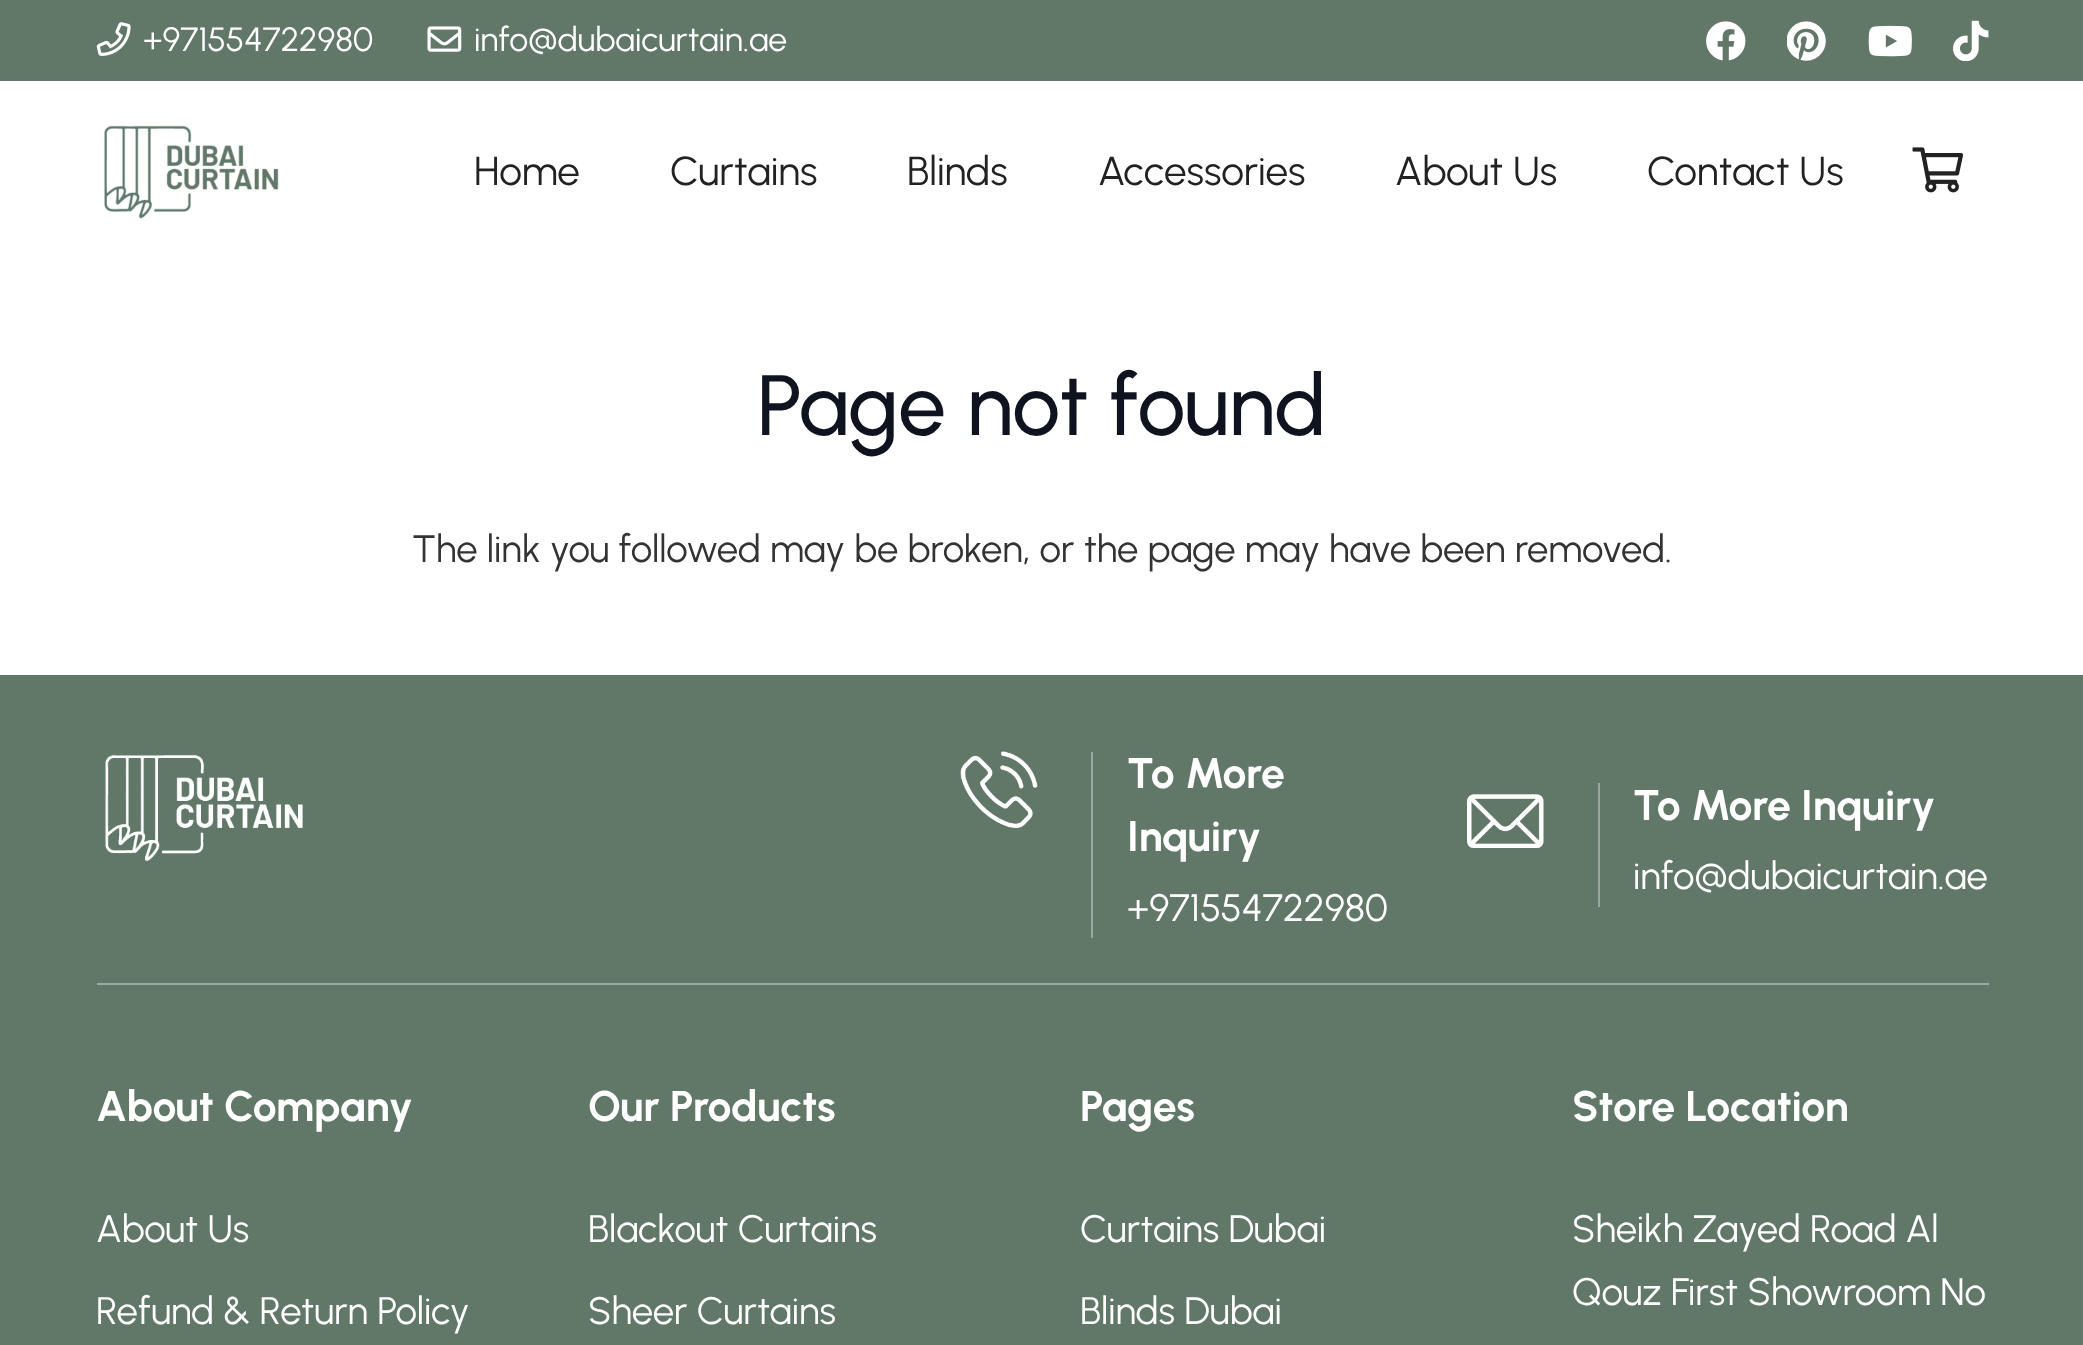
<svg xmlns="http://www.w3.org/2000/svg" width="2083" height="1345">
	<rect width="100%" height="100%" fill="#FFFFFF" />
	<rect x="0" y="0" width="2083" height="81" fill="#617868" />
	<image x="96" y="22" width="35" height="34" href="assets/img1.png" />
	<text x="143" y="51" font-family="Urbanist" font-size="33.75" fill="#FFFFFF">+971554722980</text>
	<image x="427" y="26" width="35" height="26" href="assets/img2.png" />
	<text x="474" y="51" font-family="Urbanist" font-size="33.75" fill="#FFFFFF">info@dubaicurtain.ae</text>
	<image x="1706" y="21" width="40" height="40" href="assets/img3.png" />
	<image x="1787" y="21" width="39" height="40" href="assets/img4.png" />
	<image x="1868" y="25" width="44" height="32" href="assets/img5.png" />
	<image x="1953" y="20" width="36" height="41" href="assets/img6.png" />
	<image x="104" y="125" width="175" height="94" href="assets/img7.png" />
	<g font-family="Urbanist" font-size="40.5" fill="#222222">
		<text x="474" y="185">Home</text>
		<text x="670" y="185">Curtains</text>
		<text x="907" y="185">Blinds</text>
		<text x="1098" y="185">Accessories</text>
		<text x="1395" y="185">About Us</text>
		<text x="1647" y="185">Contact Us</text>
	</g>
	<image x="1912" y="147" width="52" height="46" href="assets/img8.png" />
	<text x="757" y="435" font-family="Urbanist" font-size="85.5" font-weight="500" fill="#0F131F">Page not found</text>
	<text x="412" y="562" font-family="Urbanist" font-size="38.25" fill="#333333">The link you followed may be broken, or the page may have been removed.</text>
	<rect x="0" y="675" width="2083" height="670" fill="#617868" />
	<rect x="97" y="983" width="1892" height="2" fill="#9AA99E" />
	<image x="105" y="755" width="198" height="107" href="assets/img9.png" />
	<image x="960" y="751" width="78" height="77" href="assets/img10.png" />
	<rect x="1091" y="752" width="2" height="186" fill="#9AA99E" />
	<g font-family="Urbanist" font-size="42.75" font-weight="700" fill="#FFFFFF">
		<text x="1127" y="788">To More</text>
		<text x="1127" y="851">Inquiry</text>
	</g>
	<text x="1127" y="921" font-family="Urbanist" font-size="38.25" fill="#FFFFFF">+971554722980</text>
	<image x="1467" y="794" width="77" height="54" href="assets/img11.png" />
	<rect x="1598" y="783" width="2" height="124" fill="#9AA99E" />
	<text x="1633" y="820" font-family="Urbanist" font-size="42.75" font-weight="700" fill="#FFFFFF">To More Inquiry</text>
	<text x="1633" y="889" font-family="Urbanist" font-size="38.25" fill="#FFFFFF">info@dubaicurtain.ae</text>
	<text x="96" y="1121" font-family="Urbanist" font-size="42.75" font-weight="700" fill="#FFFFFF">About Company</text>
	<g font-family="Urbanist" font-size="38.25" fill="#FFFFFF">
		<text x="96" y="1242">About Us</text>
		<text x="96" y="1324">Refund &amp; Return Policy</text>
	</g>
	<text x="588" y="1121" font-family="Urbanist" font-size="42.75" font-weight="700" fill="#FFFFFF">Our Products</text>
	<g font-family="Urbanist" font-size="38.25" fill="#FFFFFF">
		<text x="588" y="1242">Blackout Curtains</text>
		<text x="588" y="1324">Sheer Curtains</text>
	</g>
	<text x="1080" y="1121" font-family="Urbanist" font-size="42.75" font-weight="700" fill="#FFFFFF">Pages</text>
	<g font-family="Urbanist" font-size="38.25" fill="#FFFFFF">
		<text x="1080" y="1242">Curtains Dubai</text>
		<text x="1080" y="1324">Blinds Dubai</text>
	</g>
	<text x="1572" y="1121" font-family="Urbanist" font-size="42.75" font-weight="700" fill="#FFFFFF">Store Location</text>
	<g font-family="Urbanist" font-size="38.25" fill="#FFFFFF">
		<text x="1572" y="1242">Sheikh Zayed Road Al</text>
		<text x="1572" y="1305">Qouz First Showroom No</text>
	</g>
</svg>
